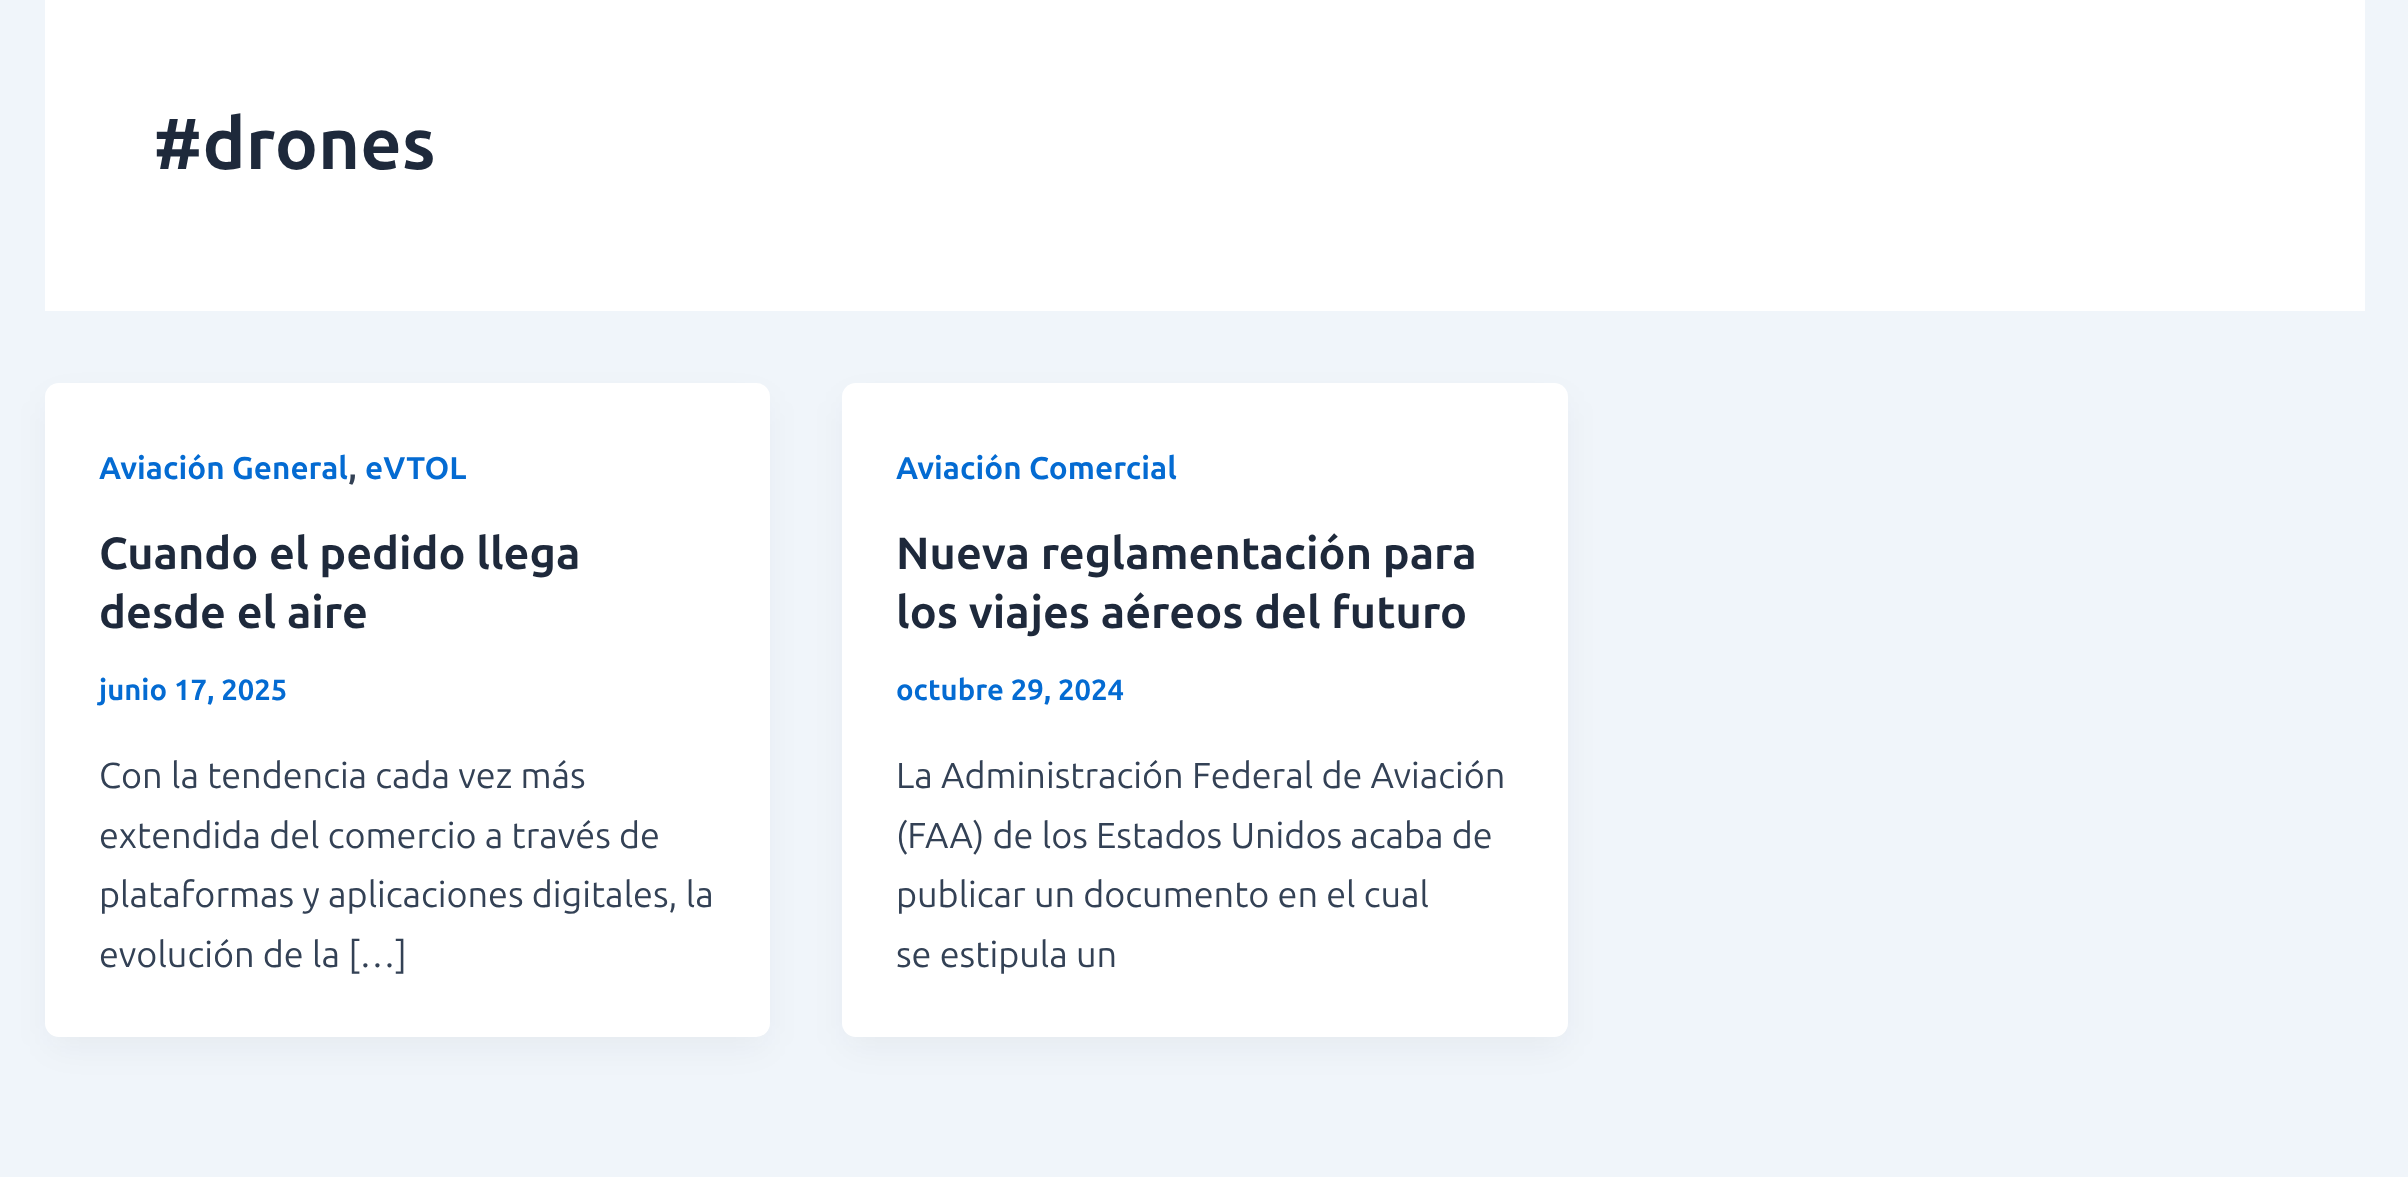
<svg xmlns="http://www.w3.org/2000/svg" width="2408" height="1177">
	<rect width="100%" height="100%" fill="#F0F5FA" />
	<rect x="45" y="0" width="2320" height="311" fill="#FFFFFF" />
	<text x="153" y="169" font-family="Ubuntu" font-size="72" font-weight="700" fill="#1E293B">#drones</text>
	<rect x="50" y="401" width="715" height="645" rx="9" fill="#101828" fill-opacity="0.05" filter="blur(17px)" />
	<rect x="45" y="383" width="725" height="654" rx="14" fill="#FFFFFF" />
	<text x="99" y="479" font-family="Ubuntu" font-size="31.5" font-weight="700" fill="#046BD2">Aviación General</text>
	<text x="348" y="479" font-family="Ubuntu" font-size="36" font-weight="600" fill="#334155">,</text>
	<text x="365" y="479" font-family="Ubuntu" font-size="31.5" font-weight="700" fill="#046BD2">eVTOL</text>
	<g font-family="Ubuntu" font-size="45" font-weight="700" fill="#1E293B">
		<text x="99" y="569">Cuando el pedido llega</text>
		<text x="99" y="628">desde el aire</text>
	</g>
	<text x="99" y="700" font-family="Ubuntu" font-size="29.25" font-weight="700" fill="#046BD2">junio 17, 2025</text>
	<g font-family="Ubuntu" font-size="36" fill="#334155">
		<text x="99" y="788">Con la tendencia cada vez más</text>
		<text x="99" y="848">extendida del comercio a través de</text>
		<text x="99" y="907">plataformas y aplicaciones digitales, la</text>
		<text x="99" y="967">evolución de la […]</text>
	</g>
	<rect x="846" y="401" width="718" height="645" rx="9" fill="#101828" fill-opacity="0.05" filter="blur(17px)" />
	<rect x="842" y="383" width="726" height="654" rx="14" fill="#FFFFFF" />
	<text x="896" y="479" font-family="Ubuntu" font-size="31.5" font-weight="700" fill="#046BD2">Aviación Comercial</text>
	<g font-family="Ubuntu" font-size="45" font-weight="700" fill="#1E293B">
		<text x="896" y="569">Nueva reglamentación para</text>
		<text x="896" y="628">los viajes aéreos del futuro</text>
	</g>
	<text x="896" y="700" font-family="Ubuntu" font-size="29.25" font-weight="700" fill="#046BD2">octubre 29, 2024</text>
	<g font-family="Ubuntu" font-size="36" fill="#334155">
		<text x="896" y="788">La Administración Federal de Aviación</text>
		<text x="896" y="848">(FAA) de los Estados Unidos acaba de</text>
		<text x="896" y="907">publicar un documento en el cual</text>
		<text x="896" y="967">se estipula un</text>
	</g>
</svg>
